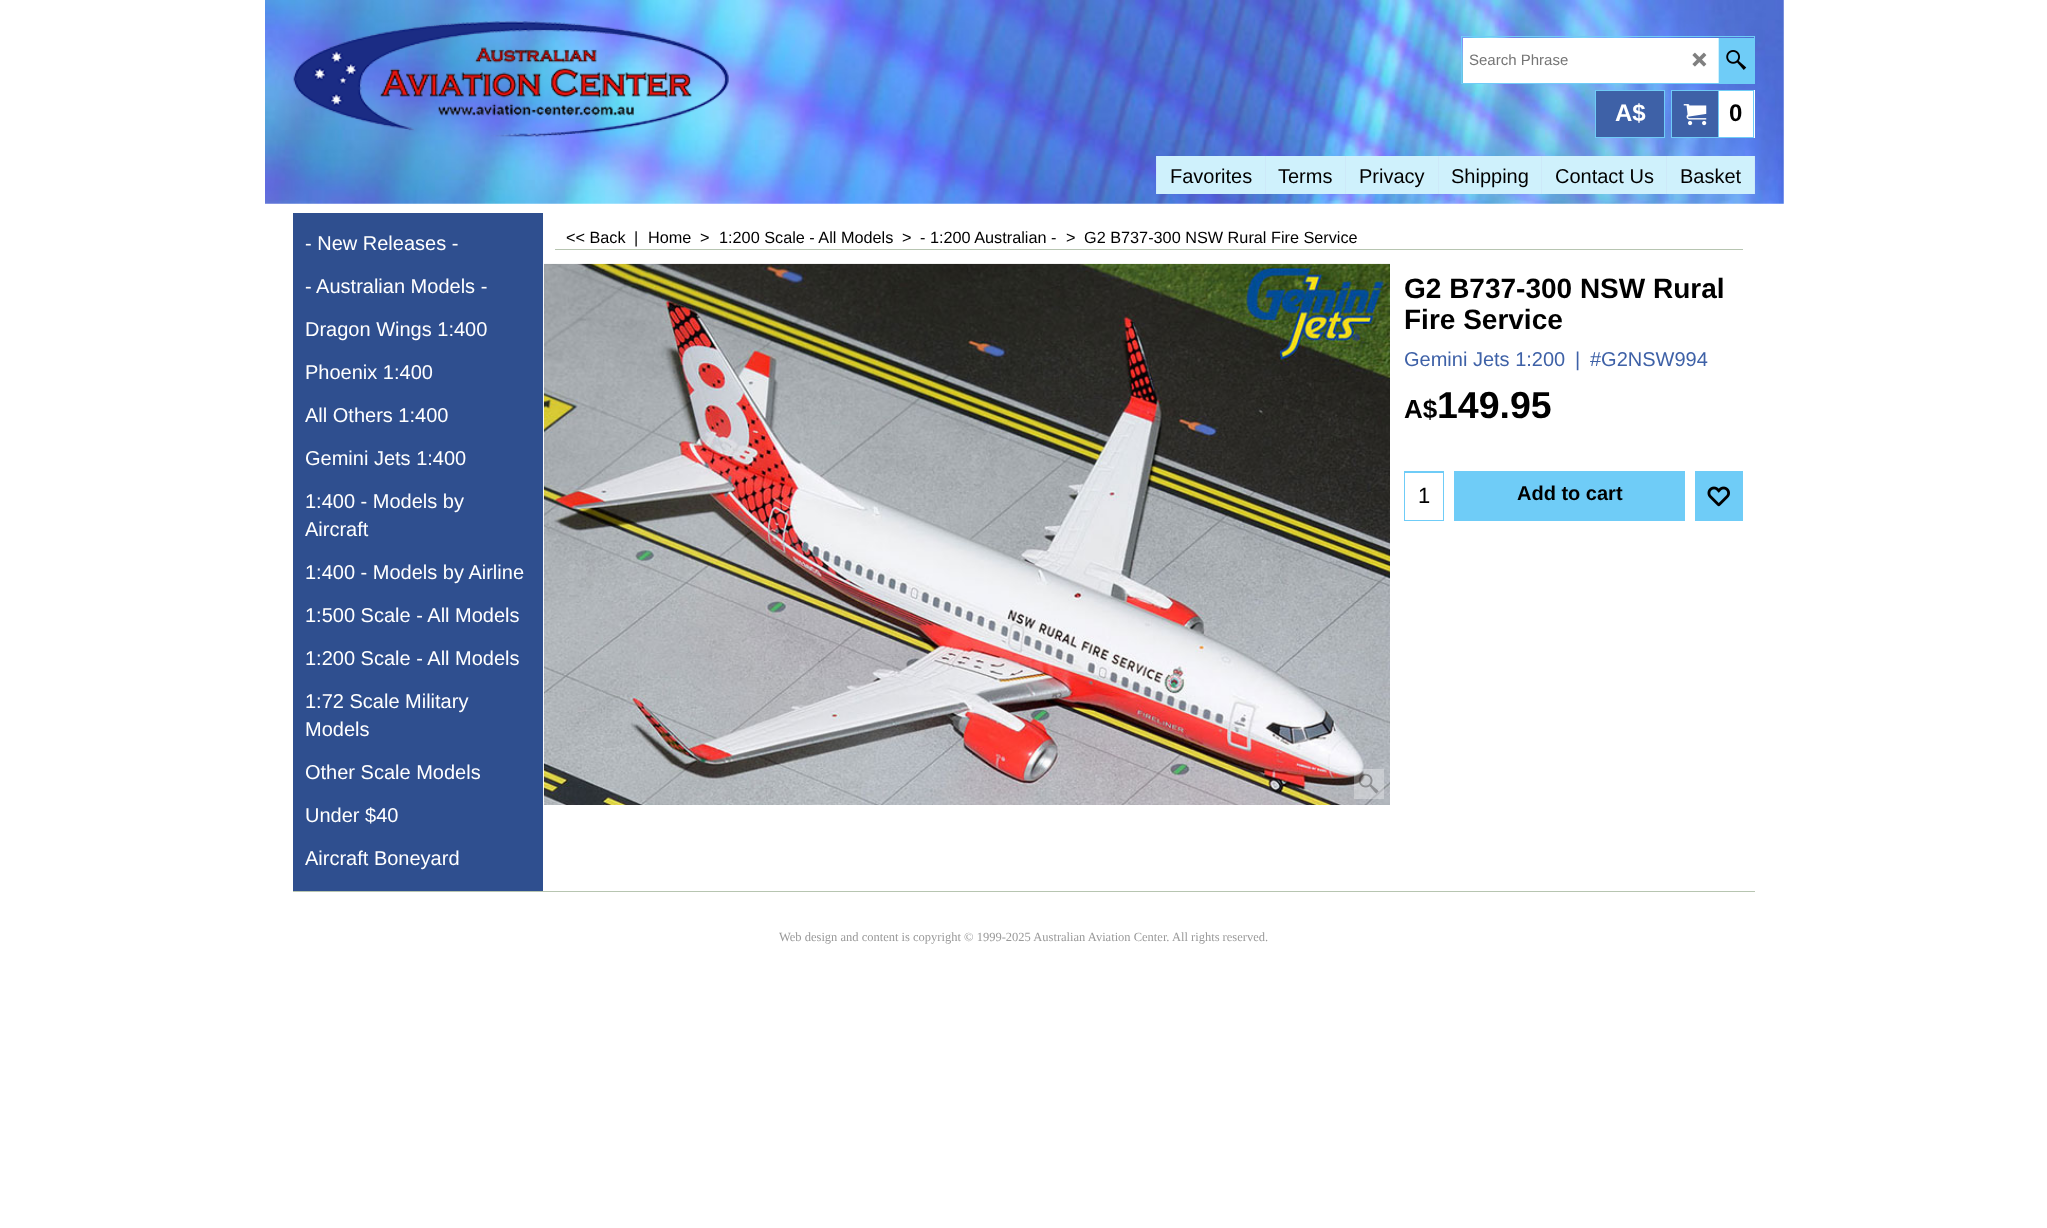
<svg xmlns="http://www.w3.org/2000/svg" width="2047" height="1228">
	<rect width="100%" height="100%" fill="#FFFFFF" />
	<image x="265" y="0" width="1519" height="204" href="assets/img1.png" />
	<image x="293" y="21" width="436" height="116" href="assets/img2.png" />
	<rect x="1461.5" y="36.5" width="293" height="47" fill="none" stroke="#6FCCF7" />
	<rect x="1463" y="38" width="255" height="45" fill="#FFFFFF" />
	<text x="1469" y="65" font-family="Liberation Sans" font-size="15" fill="#757575">Search Phrase</text>
	<image x="1692" y="52" width="15" height="15" href="assets/img3.png" />
	<rect x="1719" y="38" width="35" height="45" fill="#6FCCF7" />
	<rect x="1718" y="38" width="1" height="45" fill="#CFF1FC" />
	<image x="1726" y="50" width="21" height="20" href="assets/img4.png" />
	<rect x="1595.5" y="90.5" width="69" height="47" fill="#3E61A7" stroke="#6FCCF7" />
	<text x="1615" y="121" font-family="Liberation Sans" font-size="24" font-weight="700" fill="#FFFFFF">A$</text>
	<rect x="1719" y="90" width="36" height="48" fill="#FFFFFF" />
	<rect x="1671.5" y="90.5" width="47" height="47" fill="#3E61A7" stroke="#6FCCF7" />
	<image x="1683" y="104" width="24" height="22" href="assets/img5.png" />
	<rect x="1718.5" y="90.5" width="35" height="47" fill="none" stroke="#6FCCF7" />
	<text x="1729" y="121" font-family="Liberation Sans" font-size="24" font-weight="700" fill="#000000">0</text>
	<rect x="1157" y="156" width="597" height="38" fill="#CFF1FC" />
	<rect x="1156" y="156" width="1" height="38" fill="#CDE9F9" />
	<text x="1170" y="183" font-family="Liberation Sans" font-size="20" fill="#000000">Favorites</text>
	<rect x="1265" y="156" width="1" height="38" fill="#CDE9F9" />
	<text x="1278" y="183" font-family="Liberation Sans" font-size="20" fill="#000000">Terms</text>
	<rect x="1345" y="156" width="1" height="38" fill="#CDE9F9" />
	<text x="1359" y="183" font-family="Liberation Sans" font-size="20" fill="#000000">Privacy</text>
	<rect x="1438" y="156" width="1" height="38" fill="#CDE9F9" />
	<text x="1451" y="183" font-family="Liberation Sans" font-size="20" fill="#000000">Shipping</text>
	<rect x="1541" y="156" width="1" height="38" fill="#CDE9F9" />
	<text x="1555" y="183" font-family="Liberation Sans" font-size="20" fill="#000000">Contact Us</text>
	<rect x="1666" y="156" width="1" height="38" fill="#CDE9F9" />
	<text x="1680" y="183" font-family="Liberation Sans" font-size="20" fill="#000000">Basket</text>
	<rect x="1754" y="156" width="1" height="38" fill="#CDE9F9" />
	<rect x="293" y="213" width="250" height="678" fill="#2F4F8F" />
	<g font-family="Liberation Sans" font-size="20" fill="#FFFFFF">
		<text x="305" y="250">- New Releases -</text>
		<text x="305" y="293">- Australian Models -</text>
		<text x="305" y="336">Dragon Wings 1:400</text>
		<text x="305" y="379">Phoenix 1:400</text>
		<text x="305" y="422">All Others 1:400</text>
		<text x="305" y="465">Gemini Jets 1:400</text>
		<text x="305" y="508">1:400 - Models by</text>
		<text x="305" y="536">Aircraft</text>
		<text x="305" y="579">1:400 - Models by Airline</text>
		<text x="305" y="622">1:500 Scale - All Models</text>
		<text x="305" y="665">1:200 Scale - All Models</text>
		<text x="305" y="708">1:72 Scale Military</text>
		<text x="305" y="736">Models</text>
		<text x="305" y="779">Other Scale Models</text>
		<text x="305" y="822">Under $40</text>
		<text x="305" y="865">Aircraft Boneyard</text>
	</g>
	<rect x="555" y="249" width="1188" height="1" fill="#B7C5B1" />
	<g font-family="Liberation Sans" font-size="16.25" fill="#000000">
		<text x="566" y="243">&lt;&lt; Back</text>
		<text x="634" y="243">|</text>
		<text x="648" y="243">Home</text>
		<text x="700" y="243">&gt;</text>
		<text x="719" y="243">1:200 Scale - All Models</text>
		<text x="902" y="243">&gt;</text>
		<text x="920" y="243">- 1:200 Australian -</text>
		<text x="1066" y="243">&gt;</text>
		<text x="1084" y="243">G2 B737-300 NSW Rural Fire Service</text>
	</g>
	<image x="543" y="263" width="847" height="542" href="assets/img6.png" />
	<rect x="1354" y="769" width="30" height="30" fill="#FFFFFF" fill-opacity="0.3" />
	<image x="1358" y="773" width="21" height="21" href="assets/img7.png" />
	<g font-family="Liberation Sans" font-size="28" font-weight="700" fill="#000000">
		<text x="1404" y="298">G2 B737-300 NSW Rural</text>
		<text x="1404" y="329">Fire Service</text>
	</g>
	<g font-family="Liberation Sans" font-size="20" fill="#3E61A7">
		<text x="1404" y="366">Gemini Jets 1:200</text>
		<text x="1575" y="366">|</text>
		<text x="1590" y="366">#G2NSW994</text>
	</g>
	<text x="1404" y="418" font-family="Liberation Sans" font-size="26" font-weight="700" fill="#000000">A$</text>
	<text x="1437" y="418" font-family="Liberation Sans" font-size="37.5" font-weight="700" fill="#000000">149.95</text>
	<rect x="1404" y="471" width="40" height="50" fill="#6FCCF7" />
	<rect x="1405" y="473" width="38" height="47" fill="#FFFFFF" />
	<text x="1418" y="503" font-family="Liberation Sans" font-size="22" fill="#000000">1</text>
	<rect x="1454" y="471" width="231" height="50" fill="#6FCCF7" />
	<text x="1517" y="500" font-family="Liberation Sans" font-size="20" font-weight="700" fill="#000000">Add to cart</text>
	<rect x="1695" y="471" width="48" height="50" fill="#6FCCF7" />
	<image x="1707" y="486" width="23" height="21" href="assets/img8.png" />
	<rect x="293" y="891" width="1462" height="1" fill="#B7C5B1" />
	<text x="779" y="941" font-family="Liberation Serif" font-size="12.5" fill="#999999">Web design and content is copyright © 1999-2025 Australian Aviation Center. All rights reserved.</text>
</svg>
